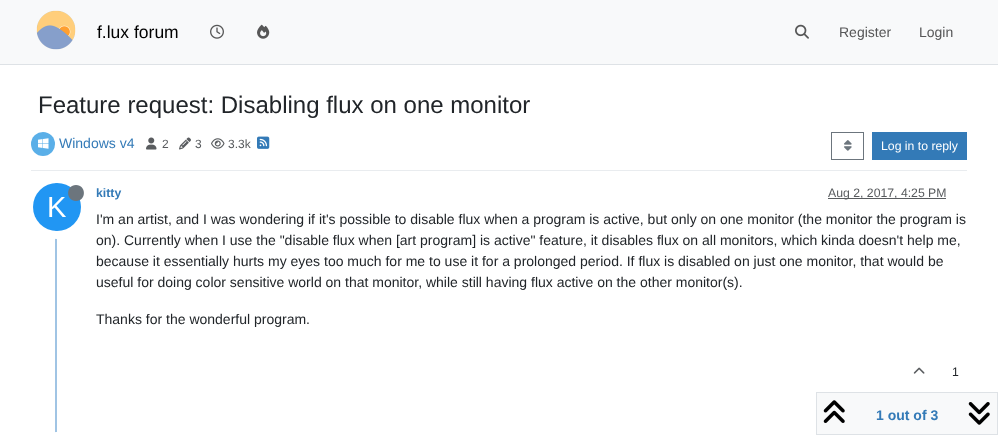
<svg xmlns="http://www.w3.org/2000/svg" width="998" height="435">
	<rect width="100%" height="100%" fill="#FFFFFF" />
	<rect x="0" y="0" width="998" height="64" fill="#F8F9FA" />
	<rect x="0" y="64" width="998" height="1" fill="#DEE2E6" />
	<image x="36" y="10" width="40" height="40" href="assets/img1.png" />
	<text x="97" y="38" font-family="Liberation Sans" font-size="17.5" fill="#000000">f.lux forum</text>
	<image x="210" y="24" width="14" height="15" href="assets/img2.png" />
	<image x="257" y="24" width="13" height="15" href="assets/img3.png" />
	<image x="795" y="24" width="14" height="15" href="assets/img4.png" />
	<g font-family="Liberation Sans" font-size="14" fill="#575758">
		<text x="839" y="37">Register</text>
		<text x="919" y="37">Login</text>
	</g>
	<text x="38" y="113" font-family="Liberation Sans" font-size="24" fill="#212529">Feature request: Disabling flux on one monitor</text>
	<rect x="31" y="170" width="936" height="1" fill="#E9ECEF" />
	<circle cx="43" cy="144" r="12" fill="#5AAFE8" />
	<image x="38" y="138" width="11" height="11" href="assets/img5.png" />
	<text x="59" y="148" font-family="Liberation Sans" font-size="14" fill="#337AB7">Windows v4</text>
	<image x="146" y="137" width="11" height="13" href="assets/img6.png" />
	<text x="162" y="148" font-family="Liberation Sans" font-size="12" fill="#585B5E">2</text>
	<image x="179" y="137" width="12" height="13" href="assets/img7.png" />
	<text x="195" y="148" font-family="Liberation Sans" font-size="12" fill="#585B5E">3</text>
	<image x="211" y="138" width="14" height="11" href="assets/img8.png" />
	<text x="228" y="148" font-family="Liberation Sans" font-size="12" fill="#585B5E">3.3k</text>
	<image x="257" y="136" width="13" height="13" href="assets/img9.png" />
	<rect x="831.5" y="132.5" width="32" height="27" fill="none" stroke="#6C757D" />
	<image x="844" y="140" width="8" height="11" href="assets/img10.png" />
	<rect x="872" y="132" width="95" height="28" fill="#337AB7" />
	<text x="881" y="150" font-family="Liberation Sans" font-size="12.25" fill="#FFFFFF">Log in to reply</text>
	<rect x="55" y="181" width="2" height="254" fill="#A0C4E4" />
	<text x="96" y="197" font-family="Liberation Sans" font-size="12.25" font-weight="700" fill="#337AB7">kitty</text>
	<rect x="828" y="198" width="118" height="1" fill="#595C5F" />
	<text x="828" y="197" font-family="Liberation Sans" font-size="12.25" fill="#585B5E">Aug 2, 2017, 4:25 PM</text>
	<circle cx="57" cy="207" r="28" fill="none" stroke="#FFFFFF" stroke-width="8" />
	<circle cx="57" cy="207" r="24" fill="#2196F3" />
	<path d="M76 201C86.5 201 86.5 185 76 185C65.5 185 65.5 201 76 201Z" fill="#6C757D" />
	<text x="47" y="217" font-family="Liberation Sans" font-size="29" fill="#FFFFFF">K</text>
	<g font-family="Liberation Sans" font-size="14" fill="#212529">
		<text x="96" y="224">I'm an artist, and I was wondering if it's possible to disable flux when a program is active, but only on one monitor (the monitor the program is</text>
		<text x="96" y="245">on). Currently when I use the "disable flux when [art program] is active" feature, it disables flux on all monitors, which kinda doesn't help me,</text>
		<text x="96" y="266">because it essentially hurts my eyes too much for me to use it for a prolonged period. If flux is disabled on just one monitor, that would be</text>
		<text x="96" y="287">useful for doing color sensitive world on that monitor, while still having flux active on the other monitor(s).</text>
		<text x="96" y="324">Thanks for the wonderful program.</text>
	</g>
	<image x="913" y="367" width="12" height="7" href="assets/img11.png" />
	<text x="952" y="376" font-family="Liberation Sans" font-size="12.25" fill="#212529">1</text>
	<rect x="29" y="436" width="56" height="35" rx="28" fill="none" stroke="#FFFFFF" stroke-width="8" />
	<rect x="816.5" y="392.5" width="181" height="42" fill="#F8F9FA" stroke="#DEE2E6" />
	<image x="823" y="400" width="22" height="23" href="assets/img12.png" />
	<text x="876" y="420" font-family="Liberation Sans" font-size="14" font-weight="700" fill="#337AB7">1 out of 3</text>
	<image x="968" y="402" width="22" height="23" href="assets/img13.png" />
</svg>
